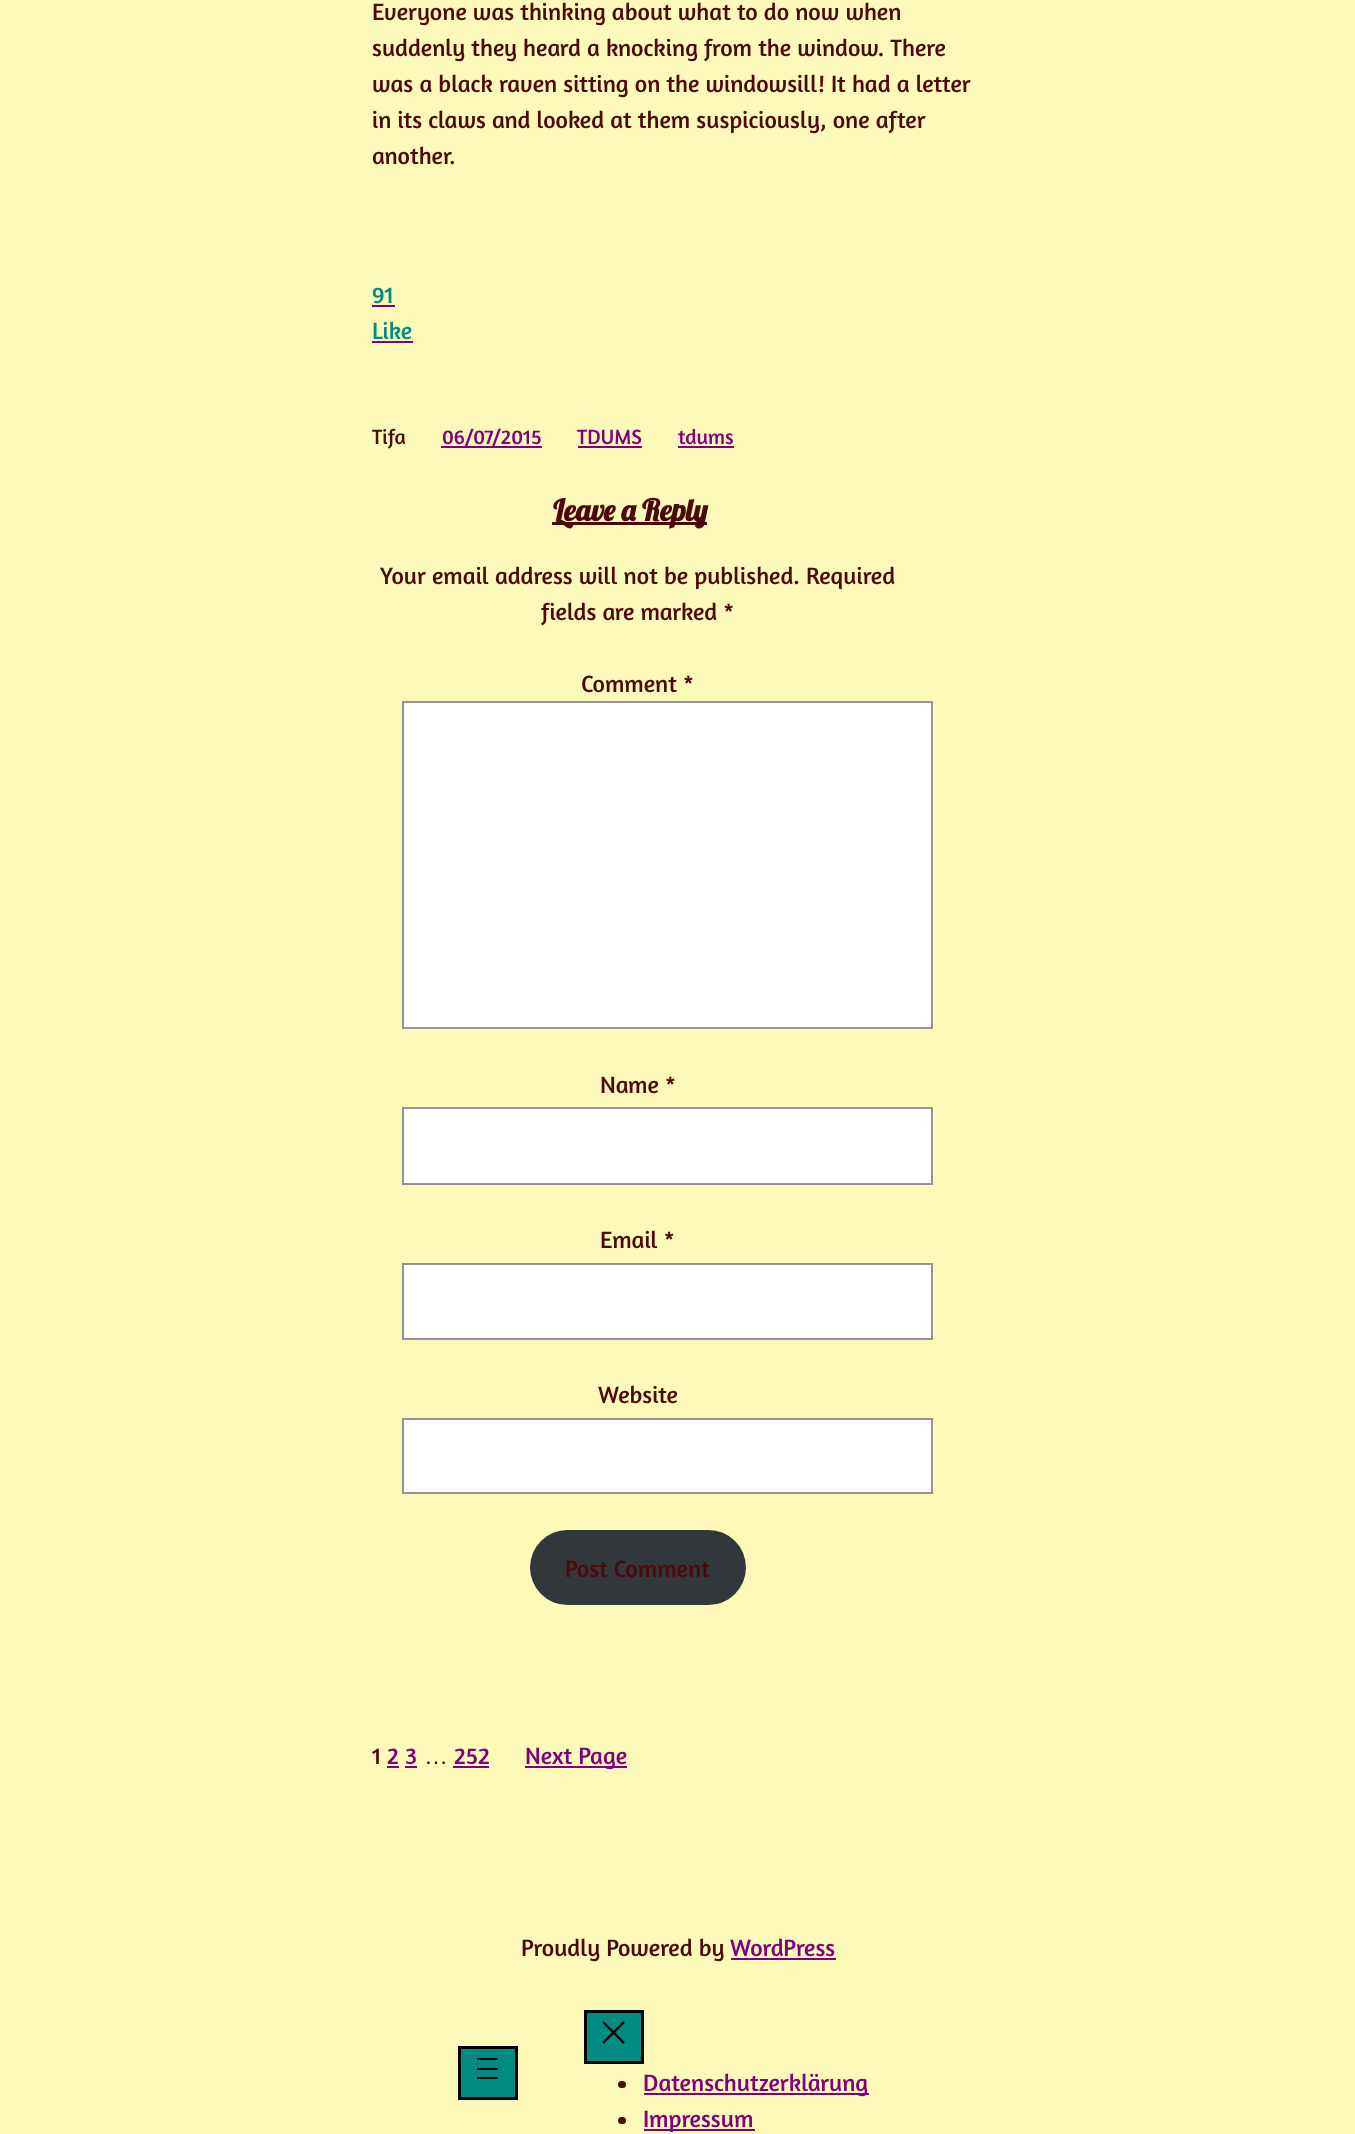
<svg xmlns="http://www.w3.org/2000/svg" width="1355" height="2134">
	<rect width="100%" height="100%" fill="#FDF9B8" />
	<g font-family="Amaranth" font-size="24" fill="#4D090A">
		<text x="372" y="20">Everyone was thinking about what to do now when</text>
		<text x="372" y="56">suddenly they heard a knocking from the window. There</text>
		<text x="372" y="92">was a black raven sitting on the windowsill! It had a letter</text>
		<text x="372" y="128">in its claws and looked at them suspiciously, one after</text>
		<text x="372" y="164">another.</text>
	</g>
	<text x="372" y="303" font-family="Amaranth" font-size="24" fill="#008B83">91</text>
	<rect x="372" y="305" width="23" height="2" fill="#800080" />
	<text x="372" y="339" font-family="Amaranth" font-size="24" fill="#008B83">Like</text>
	<rect x="372" y="341" width="41" height="2" fill="#800080" />
	<text x="372" y="444" font-family="Amaranth" font-size="21" fill="#4D090A">Tifa</text>
	<rect x="441" y="446" width="101" height="2" fill="#800080" />
	<g font-family="Amaranth" font-size="21" fill="#800080">
		<text x="442" y="444">06/07/2015</text>
		<text x="577" y="444">TDUMS</text>
	</g>
	<rect x="578" y="446" width="64" height="2" fill="#800080" />
	<text x="678" y="444" font-family="Amaranth" font-size="21" fill="#800080">tdums</text>
	<rect x="678" y="446" width="56" height="2" fill="#800080" />
	<rect x="552" y="522" width="155" height="3" fill="#4D090A" />
	<text x="553" y="521" font-family="Lobster" font-size="30" font-weight="700" fill="#4D090A">Leave a Reply</text>
	<g font-family="Amaranth" font-size="24" fill="#4D090A">
		<text x="380" y="584">Your email address will not be published. Required</text>
		<text x="541" y="620">fields are marked *</text>
		<text x="581" y="692">Comment *</text>
	</g>
	<rect x="403" y="702" width="529" height="326" fill="#FFFFFF" stroke="#949494" stroke-width="2" />
	<text x="600" y="1093" font-family="Amaranth" font-size="24" fill="#4D090A">Name *</text>
	<rect x="403" y="1108" width="529" height="76" fill="#FFFFFF" stroke="#949494" stroke-width="2" />
	<text x="600" y="1248" font-family="Amaranth" font-size="24" fill="#4D090A">Email *</text>
	<rect x="403" y="1264" width="529" height="75" fill="#FFFFFF" stroke="#949494" stroke-width="2" />
	<text x="598" y="1403" font-family="Amaranth" font-size="24" fill="#4D090A">Website</text>
	<rect x="403" y="1419" width="529" height="74" fill="#FFFFFF" stroke="#949494" stroke-width="2" />
	<rect x="530" y="1530" width="216" height="75" rx="37.5" fill="#32373C" />
	<g font-family="Amaranth" font-size="24" fill="#4D090A">
		<text x="565" y="1577">Post Comment</text>
		<text x="372" y="1764">1</text>
	</g>
	<text x="387" y="1764" font-family="Amaranth" font-size="24" fill="#800080">2 3</text>
	<rect x="387" y="1766" width="12" height="2" fill="#800080" />
	<text x="424" y="1764" font-family="Liberation Sans" font-size="24" fill="#4D090A">…</text>
	<text x="454" y="1764" font-family="Amaranth" font-size="24" fill="#800080">252</text>
	<rect x="453" y="1766" width="36" height="2" fill="#800080" />
	<rect x="405" y="1766" width="12" height="2" fill="#800080" />
	<rect x="525" y="1766" width="102" height="2" fill="#800080" />
	<text x="525" y="1764" font-family="Amaranth" font-size="24" fill="#800080">Next Page</text>
	<text x="521" y="1956" font-family="Amaranth" font-size="24" fill="#4D090A">Proudly Powered by</text>
	<text x="730" y="1956" font-family="Amaranth" font-size="24" fill="#800080">WordPress</text>
	<rect x="731" y="1958" width="105" height="2" fill="#800080" />
	<rect x="459.5" y="2047.5" width="57" height="51" fill="#008B83" stroke="#000000" stroke-width="3" />
	<rect x="477" y="2058" width="21" height="2" fill="#000000" />
	<rect x="477" y="2068" width="21" height="2" fill="#000000" />
	<rect x="477" y="2077" width="21" height="2" fill="#000000" />
	<rect x="585.5" y="2011.5" width="57" height="51" fill="#008B83" stroke="#000000" stroke-width="3" />
	<image x="602" y="2021" width="23" height="23" href="assets/img1.png" />
	<rect x="618" y="2081" width="8" height="7" rx="3.5" fill="#4D090A" />
	<rect x="644" y="2093" width="225" height="2" fill="#800080" />
	<text x="643" y="2091" font-family="Amaranth" font-size="24" fill="#800080">Datenschutzerklärung</text>
	<rect x="618" y="2117" width="8" height="7" rx="3.5" fill="#4D090A" />
	<rect x="644" y="2129" width="111" height="2" fill="#800080" />
	<text x="643" y="2127" font-family="Amaranth" font-size="24" fill="#800080">Impressum</text>
</svg>
